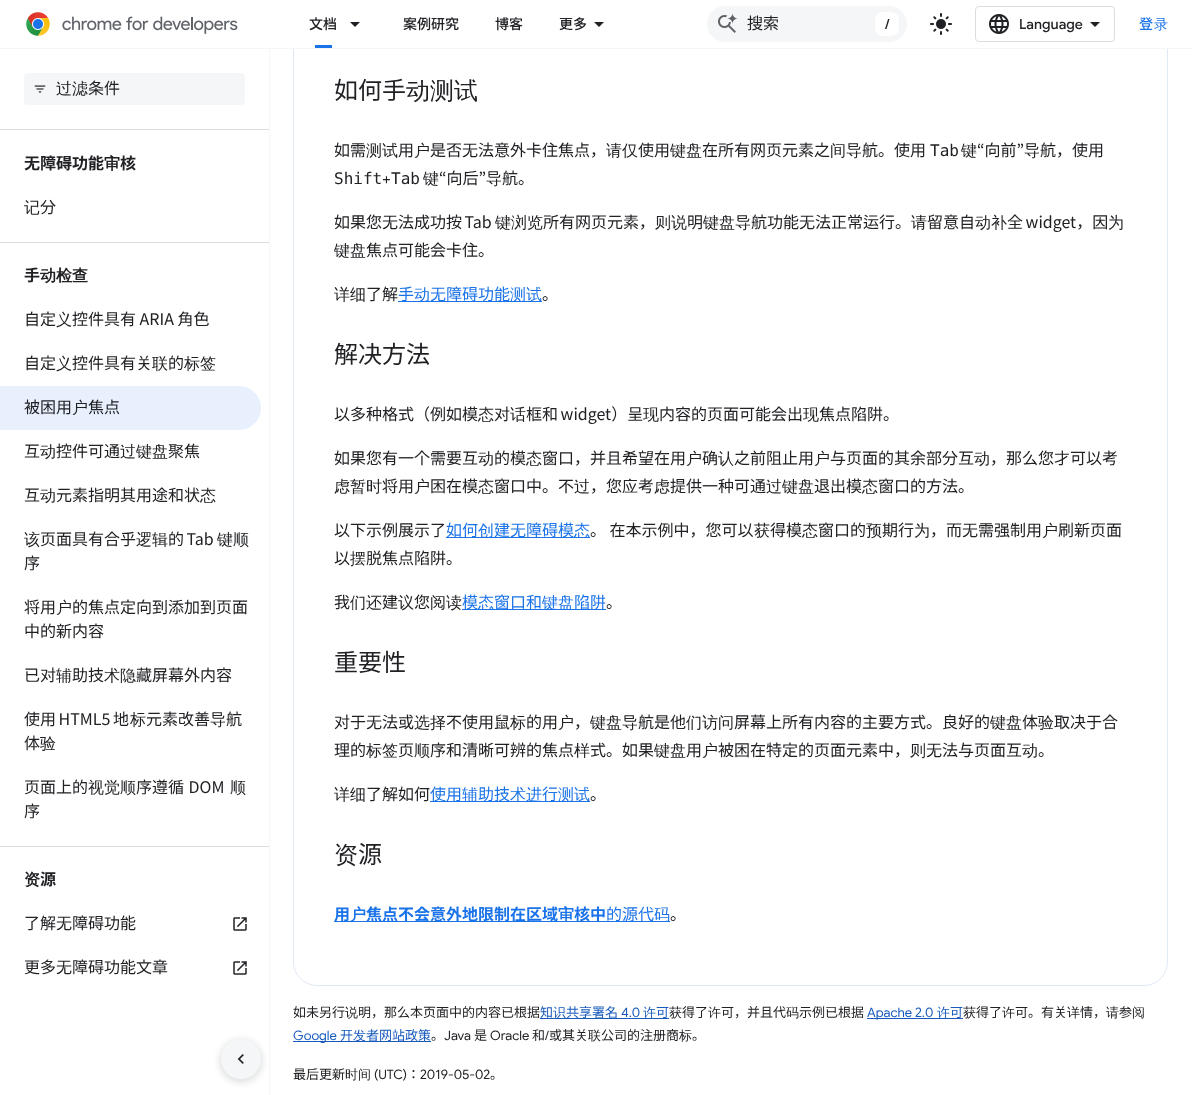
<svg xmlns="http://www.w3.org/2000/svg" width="1192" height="1095">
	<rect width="100%" height="100%" fill="#FFFFFF" />
	<rect x="293.5" y="-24.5" width="874" height="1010" rx="23.5" fill="none" stroke="#E1E9F6" />
	<rect x="293" y="0" width="875" height="48" fill="#FFFFFF" />
	<rect x="0" y="48" width="1192" height="1" fill="#F5F6F7" />
	<image x="26" y="12" width="212" height="24" href="assets/img1.png" />
	<text x="309" y="29" font-family="Noto Sans JP" font-size="14" font-weight="500" fill="#202124">文档</text>
	<rect x="315" y="45" width="17" height="3" fill="#1A73E8" />
	<path d="M350 22H360L355 27Z" fill="#202124" />
	<g font-family="Noto Sans JP" font-size="14" font-weight="500" fill="#202124">
		<text x="403" y="29">案例研究</text>
		<text x="495" y="29">博客</text>
		<text x="559" y="29">更多</text>
	</g>
	<path d="M594 22H604L599 27Z" fill="#202124" />
	<rect x="707" y="6" width="200" height="36" rx="18" fill="#F5F6F7" />
	<image x="718" y="13" width="20" height="20" href="assets/img2.png" />
	<text x="747" y="29" font-family="Noto Sans JP" font-size="16" fill="#202124">搜索</text>
	<rect x="875" y="12" width="24" height="24" rx="8" fill="#FFFFFF" />
	<text x="885" y="29" font-family="Google Sans" font-size="14" font-weight="500" fill="#202124">/</text>
	<image x="930" y="13" width="22" height="22" href="assets/img3.png" />
	<rect x="975.5" y="6.5" width="139" height="35" rx="3.5" fill="none" stroke="#DADCE0" />
	<image x="989" y="14" width="20" height="20" href="assets/img4.png" />
	<text x="1019" y="29" font-family="Google Sans" font-size="14" font-weight="500" fill="#202124">Language</text>
	<path d="M1095 27L1090 22H1100Z" fill="#202124" />
	<text x="1139" y="29" font-family="Noto Sans JP" font-size="14" font-weight="500" fill="#1A73E8">登</text>
	<text x="1154" y="29" font-family="WenQuanYi Zen Hei" font-size="14" font-weight="500" fill="#1A73E8">录</text>
	<rect x="0" y="129" width="269" height="1" fill="#DADCE0" />
	<rect x="24" y="73" width="221" height="32" rx="4" fill="#F5F6F7" />
	<image x="34" y="85" width="12" height="8" href="assets/img5.png" />
	<text x="56" y="94" font-family="WenQuanYi Zen Hei" font-size="16" font-weight="500" fill="#202124">过滤</text>
	<text x="88" y="94" font-family="Noto Sans JP" font-size="16" fill="#202124">条件</text>
	<text x="24" y="169" font-family="Noto Sans JP" font-size="16" font-weight="700" fill="#202124">无障碍功能</text>
	<text x="104" y="169" font-family="WenQuanYi Zen Hei" font-size="16" font-weight="700" fill="#202124">审</text>
	<text x="120" y="169" font-family="Noto Sans JP" font-size="16" font-weight="700" fill="#202124">核</text>
	<text x="24" y="213" font-family="WenQuanYi Zen Hei" font-size="16" font-weight="500" fill="#202124">记</text>
	<text x="40" y="213" font-family="Noto Sans JP" font-size="16" fill="#202124">分</text>
	<rect x="0" y="242" width="269" height="1" fill="#DADCE0" />
	<text x="24" y="281" font-family="Noto Sans JP" font-size="16" font-weight="700" fill="#202124">手</text>
	<text x="40" y="281" font-family="WenQuanYi Zen Hei" font-size="16" font-weight="700" fill="#202124">动检查</text>
	<text x="24" y="325" font-family="Noto Sans JP" font-size="16" fill="#202124">自定</text>
	<text x="56" y="325" font-family="WenQuanYi Zen Hei" font-size="16" font-weight="500" fill="#202124">义</text>
	<g font-family="Noto Sans JP" font-size="16" fill="#202124">
		<text x="72" y="325">控件具有 ARIA 角色</text>
		<text x="24" y="369">自定</text>
	</g>
	<text x="56" y="369" font-family="WenQuanYi Zen Hei" font-size="16" font-weight="500" fill="#202124">义</text>
	<text x="72" y="369" font-family="Noto Sans JP" font-size="16" fill="#202124">控件具有关</text>
	<text x="152" y="369" font-family="WenQuanYi Zen Hei" font-size="16" font-weight="500" fill="#202124">联</text>
	<text x="168" y="369" font-family="Noto Sans JP" font-size="16" fill="#202124">的</text>
	<text x="184" y="369" font-family="WenQuanYi Zen Hei" font-size="16" font-weight="500" fill="#202124">标签</text>
	<path d="M0 386H239C251 386 261 396 261 408C261 420 251 430 239 430H0Z" fill="#E8F0FE" />
	<text x="24" y="413" font-family="Noto Sans JP" font-size="16" fill="#202124">被困用</text>
	<text x="72" y="413" font-family="WenQuanYi Zen Hei" font-size="16" font-weight="500" fill="#202124">户</text>
	<g font-family="Noto Sans JP" font-size="16" fill="#202124">
		<text x="88" y="413">焦点</text>
		<text x="24" y="457">互</text>
	</g>
	<text x="40" y="457" font-family="WenQuanYi Zen Hei" font-size="16" font-weight="500" fill="#202124">动</text>
	<text x="56" y="457" font-family="Noto Sans JP" font-size="16" fill="#202124">控件可通</text>
	<text x="120" y="457" font-family="WenQuanYi Zen Hei" font-size="16" font-weight="500" fill="#202124">过键盘</text>
	<g font-family="Noto Sans JP" font-size="16" fill="#202124">
		<text x="168" y="457">聚焦</text>
		<text x="24" y="501">互</text>
	</g>
	<text x="40" y="501" font-family="WenQuanYi Zen Hei" font-size="16" font-weight="500" fill="#202124">动</text>
	<text x="56" y="501" font-family="Noto Sans JP" font-size="16" fill="#202124">元素指明其用途和状</text>
	<g font-family="WenQuanYi Zen Hei" font-size="16" font-weight="500" fill="#202124">
		<text x="200" y="501">态</text>
		<text x="24" y="545">该</text>
	</g>
	<text x="40" y="545" font-family="Noto Sans JP" font-size="16" fill="#202124">页面具有合乎</text>
	<text x="136" y="545" font-family="WenQuanYi Zen Hei" font-size="16" font-weight="500" fill="#202124">逻辑</text>
	<text x="168" y="545" word-spacing="-1" font-family="Noto Sans JP" font-size="16" fill="#202124">的 Tab</text>
	<text x="217" y="545" font-family="WenQuanYi Zen Hei" font-size="16" font-weight="500" fill="#202124">键顺</text>
	<g font-family="Noto Sans JP" font-size="16" fill="#202124">
		<text x="24" y="569">序</text>
		<text x="24" y="613">将用</text>
	</g>
	<text x="56" y="613" font-family="WenQuanYi Zen Hei" font-size="16" font-weight="500" fill="#202124">户</text>
	<g font-family="Noto Sans JP" font-size="16" fill="#202124">
		<text x="72" y="613">的焦点定向到添加到页面</text>
		<text x="24" y="637">中的新内容</text>
		<text x="24" y="681">已</text>
	</g>
	<text x="40" y="681" font-family="Noto Sans KR" font-size="16" fill="#202124">对</text>
	<text x="56" y="681" font-family="WenQuanYi Zen Hei" font-size="16" font-weight="500" fill="#202124">辅</text>
	<text x="72" y="681" font-family="Noto Sans JP" font-size="16" fill="#202124">助技</text>
	<text x="104" y="681" font-family="WenQuanYi Zen Hei" font-size="16" font-weight="500" fill="#202124">术隐</text>
	<g font-family="Noto Sans JP" font-size="16" fill="#202124">
		<text x="136" y="681">藏屏幕外内容</text>
		<text x="24" y="725" word-spacing="-1">使用 HTML5 地</text>
	</g>
	<text x="130" y="725" font-family="WenQuanYi Zen Hei" font-size="16" font-weight="500" fill="#202124">标</text>
	<text x="146" y="725" font-family="Noto Sans JP" font-size="16" fill="#202124">元素改善</text>
	<text x="210" y="725" font-family="WenQuanYi Zen Hei" font-size="16" font-weight="500" fill="#202124">导</text>
	<g font-family="Noto Sans JP" font-size="16" fill="#202124">
		<text x="226" y="725">航</text>
		<text x="24" y="749">体</text>
	</g>
	<text x="40" y="749" font-family="WenQuanYi Zen Hei" font-size="16" font-weight="500" fill="#202124">验</text>
	<text x="24" y="793" font-family="Noto Sans JP" font-size="16" fill="#202124">页面上的</text>
	<text x="88" y="793" font-family="WenQuanYi Zen Hei" font-size="16" font-weight="500" fill="#202124">视觉顺</text>
	<text x="136" y="793" word-spacing="1" font-family="Noto Sans JP" font-size="16" fill="#202124">序遵循 DOM</text>
	<text x="230" y="793" font-family="WenQuanYi Zen Hei" font-size="16" font-weight="500" fill="#202124">顺</text>
	<text x="24" y="817" font-family="Noto Sans JP" font-size="16" fill="#202124">序</text>
	<rect x="0" y="846" width="269" height="1" fill="#DADCE0" />
	<text x="24" y="885" font-family="WenQuanYi Zen Hei" font-size="16" font-weight="700" fill="#202124">资</text>
	<text x="40" y="885" font-family="Noto Sans JP" font-size="16" font-weight="700" fill="#202124">源</text>
	<text x="24" y="929" font-family="Noto Sans JP" font-size="16" fill="#202124">了解无障碍功能</text>
	<image x="233" y="917" width="14" height="14" href="assets/img6.png" />
	<text x="24" y="973" font-family="Noto Sans JP" font-size="16" fill="#202124">更多无障碍功能文章</text>
	<image x="233" y="961" width="14" height="14" href="assets/img6.png" />
	<rect x="269" y="49" width="1" height="1046" fill="#F5F6F7" />
	<text x="334" y="99" font-family="Noto Sans JP" font-size="24" fill="#202124">如何手</text>
	<text x="406" y="99" font-family="WenQuanYi Zen Hei" font-size="24" font-weight="500" fill="#202124">动测试</text>
	<text x="334" y="156" font-family="Noto Sans JP" font-size="16" fill="#202124">如需</text>
	<text x="366" y="156" font-family="WenQuanYi Zen Hei" font-size="16" font-weight="500" fill="#202124">测试</text>
	<text x="398" y="156" font-family="Noto Sans JP" font-size="16" fill="#202124">用</text>
	<text x="414" y="156" font-family="WenQuanYi Zen Hei" font-size="16" font-weight="500" fill="#202124">户</text>
	<text x="430" y="156" font-family="Noto Sans JP" font-size="16" fill="#202124">是否无法意外卡住焦点，</text>
	<text x="606" y="156" font-family="WenQuanYi Zen Hei" font-size="16" font-weight="500" fill="#202124">请仅</text>
	<text x="638" y="156" font-family="Noto Sans JP" font-size="16" fill="#202124">使用</text>
	<text x="670" y="156" font-family="WenQuanYi Zen Hei" font-size="16" font-weight="500" fill="#202124">键盘</text>
	<text x="702" y="156" font-family="Noto Sans JP" font-size="16" fill="#202124">在所有网页元素之</text>
	<text x="830" y="156" font-family="WenQuanYi Zen Hei" font-size="16" font-weight="500" fill="#202124">间导</text>
	<text x="862" y="156" font-family="Noto Sans JP" font-size="16" fill="#202124">航。使用</text>
	<text x="930" y="156" font-family="DejaVu Sans Mono" font-size="16" fill="#202124">Tab</text>
	<text x="961" y="156" font-family="WenQuanYi Zen Hei" font-size="16" font-weight="500" fill="#202124">键</text>
	<text x="977" y="156" font-family="Noto Sans JP" font-size="16" fill="#202124">“向前”</text>
	<text x="1024" y="156" font-family="WenQuanYi Zen Hei" font-size="16" font-weight="500" fill="#202124">导</text>
	<text x="1040" y="156" font-family="Noto Sans JP" font-size="16" fill="#202124">航，使用</text>
	<text x="334" y="184" font-family="DejaVu Sans Mono" font-size="16" fill="#202124">Shift</text>
	<text x="382" y="184" font-family="Google Sans" font-size="16" fill="#202124">+</text>
	<text x="391" y="184" font-family="DejaVu Sans Mono" font-size="16" fill="#202124">Tab</text>
	<text x="423" y="184" font-family="WenQuanYi Zen Hei" font-size="16" font-weight="500" fill="#202124">键</text>
	<text x="439" y="184" font-family="Noto Sans JP" font-size="16" fill="#202124">“向后”</text>
	<text x="486" y="184" font-family="WenQuanYi Zen Hei" font-size="16" font-weight="500" fill="#202124">导</text>
	<g font-family="Noto Sans JP" font-size="16" fill="#202124">
		<text x="502" y="184">航。</text>
		<text x="334" y="228" word-spacing="-1">如果您无法成功按 Tab</text>
	</g>
	<text x="495" y="228" font-family="WenQuanYi Zen Hei" font-size="16" font-weight="500" fill="#202124">键浏览</text>
	<text x="543" y="228" font-family="Noto Sans JP" font-size="16" fill="#202124">所有网页元素，</text>
	<text x="655" y="228" font-family="WenQuanYi Zen Hei" font-size="16" font-weight="500" fill="#202124">则说</text>
	<text x="687" y="228" font-family="Noto Sans JP" font-size="16" fill="#202124">明</text>
	<text x="703" y="228" font-family="WenQuanYi Zen Hei" font-size="16" font-weight="500" fill="#202124">键盘导</text>
	<text x="751" y="228" font-family="Noto Sans JP" font-size="16" fill="#202124">航功能无法正常运行。</text>
	<text x="911" y="228" font-family="WenQuanYi Zen Hei" font-size="16" font-weight="500" fill="#202124">请</text>
	<text x="927" y="228" font-family="Noto Sans JP" font-size="16" fill="#202124">留意自</text>
	<text x="975" y="228" font-family="WenQuanYi Zen Hei" font-size="16" font-weight="500" fill="#202124">动补</text>
	<text x="1007" y="228" word-spacing="-1" font-family="Noto Sans JP" font-size="16" fill="#202124">全 widget，因</text>
	<g font-family="WenQuanYi Zen Hei" font-size="16" font-weight="500" fill="#202124">
		<text x="1108" y="228">为</text>
		<text x="334" y="256">键盘</text>
	</g>
	<text x="366" y="256" font-family="Noto Sans JP" font-size="16" fill="#202124">焦点可能会卡住。</text>
	<text x="334" y="300" font-family="WenQuanYi Zen Hei" font-size="16" font-weight="500" fill="#202124">详细</text>
	<text x="366" y="300" font-family="Noto Sans JP" font-size="16" fill="#202124">了解</text>
	<rect x="398" y="301" width="144" height="1" fill="#1A73E8" />
	<text x="398" y="300" font-family="Noto Sans JP" font-size="16" fill="#1A73E8">手</text>
	<text x="414" y="300" font-family="WenQuanYi Zen Hei" font-size="16" font-weight="500" fill="#1A73E8">动</text>
	<text x="430" y="300" font-family="Noto Sans JP" font-size="16" fill="#1A73E8">无障碍功能</text>
	<text x="510" y="300" font-family="WenQuanYi Zen Hei" font-size="16" font-weight="500" fill="#1A73E8">测试</text>
	<text x="542" y="300" font-family="Noto Sans JP" font-size="16" fill="#202124">。</text>
	<text x="334" y="363" font-family="Noto Sans JP" font-size="24" fill="#202124">解决方法</text>
	<text x="334" y="420" font-family="Noto Sans JP" font-size="16" fill="#202124">以多种格式（例如模</text>
	<text x="478" y="420" font-family="WenQuanYi Zen Hei" font-size="16" font-weight="500" fill="#202124">态</text>
	<text x="494" y="420" font-family="Noto Sans KR" font-size="16" fill="#202124">对</text>
	<text x="510" y="420" font-family="WenQuanYi Zen Hei" font-size="16" font-weight="500" fill="#202124">话</text>
	<text x="526" y="420" word-spacing="-1" font-family="Noto Sans JP" font-size="16" fill="#202124">框和 widget）呈</text>
	<text x="643" y="420" font-family="WenQuanYi Zen Hei" font-size="16" font-weight="500" fill="#202124">现</text>
	<text x="659" y="420" font-family="Noto Sans JP" font-size="16" fill="#202124">内容的页面可能会出</text>
	<text x="803" y="420" font-family="WenQuanYi Zen Hei" font-size="16" font-weight="500" fill="#202124">现</text>
	<g font-family="Noto Sans JP" font-size="16" fill="#202124">
		<text x="819" y="420">焦点陷阱。</text>
		<text x="334" y="464">如果您有一个需要互</text>
	</g>
	<text x="478" y="464" font-family="WenQuanYi Zen Hei" font-size="16" font-weight="500" fill="#202124">动</text>
	<text x="494" y="464" font-family="Noto Sans JP" font-size="16" fill="#202124">的模</text>
	<text x="526" y="464" font-family="WenQuanYi Zen Hei" font-size="16" font-weight="500" fill="#202124">态</text>
	<text x="542" y="464" font-family="Noto Sans JP" font-size="16" fill="#202124">窗口，并且希望在用</text>
	<text x="686" y="464" font-family="WenQuanYi Zen Hei" font-size="16" font-weight="500" fill="#202124">户</text>
	<text x="702" y="464" font-family="Noto Sans JP" font-size="16" fill="#202124">确</text>
	<text x="718" y="464" font-family="WenQuanYi Zen Hei" font-size="16" font-weight="500" fill="#202124">认</text>
	<text x="734" y="464" font-family="Noto Sans JP" font-size="16" fill="#202124">之前阻止用</text>
	<text x="814" y="464" font-family="WenQuanYi Zen Hei" font-size="16" font-weight="500" fill="#202124">户</text>
	<text x="830" y="464" font-family="Noto Sans JP" font-size="16" fill="#202124">与页面的其余部分互</text>
	<text x="974" y="464" font-family="WenQuanYi Zen Hei" font-size="16" font-weight="500" fill="#202124">动</text>
	<text x="990" y="464" font-family="Noto Sans JP" font-size="16" fill="#202124">，那么您才可以考</text>
	<text x="334" y="492" font-family="WenQuanYi Zen Hei" font-size="16" font-weight="500" fill="#202124">虑暂时</text>
	<text x="382" y="492" font-family="Noto Sans JP" font-size="16" fill="#202124">将用</text>
	<text x="414" y="492" font-family="WenQuanYi Zen Hei" font-size="16" font-weight="500" fill="#202124">户</text>
	<text x="430" y="492" font-family="Noto Sans JP" font-size="16" fill="#202124">困在模</text>
	<text x="478" y="492" font-family="WenQuanYi Zen Hei" font-size="16" font-weight="500" fill="#202124">态</text>
	<text x="494" y="492" font-family="Noto Sans JP" font-size="16" fill="#202124">窗口中。不</text>
	<text x="574" y="492" font-family="WenQuanYi Zen Hei" font-size="16" font-weight="500" fill="#202124">过</text>
	<text x="590" y="492" font-family="Noto Sans JP" font-size="16" fill="#202124">，您</text>
	<text x="622" y="492" font-family="WenQuanYi Zen Hei" font-size="16" font-weight="500" fill="#202124">应</text>
	<text x="638" y="492" font-family="Noto Sans JP" font-size="16" fill="#202124">考</text>
	<text x="654" y="492" font-family="WenQuanYi Zen Hei" font-size="16" font-weight="500" fill="#202124">虑</text>
	<text x="670" y="492" font-family="Noto Sans JP" font-size="16" fill="#202124">提供一种可通</text>
	<text x="766" y="492" font-family="WenQuanYi Zen Hei" font-size="16" font-weight="500" fill="#202124">过键盘</text>
	<text x="814" y="492" font-family="Noto Sans JP" font-size="16" fill="#202124">退出模</text>
	<text x="862" y="492" font-family="WenQuanYi Zen Hei" font-size="16" font-weight="500" fill="#202124">态</text>
	<g font-family="Noto Sans JP" font-size="16" fill="#202124">
		<text x="878" y="492">窗口的方法。</text>
		<text x="334" y="536">以下示例展示了</text>
	</g>
	<rect x="446" y="537" width="144" height="1" fill="#1A73E8" />
	<text x="446" y="536" font-family="Noto Sans JP" font-size="16" fill="#1A73E8">如何</text>
	<text x="478" y="536" font-family="WenQuanYi Zen Hei" font-size="16" font-weight="500" fill="#1A73E8">创</text>
	<text x="494" y="536" font-family="Noto Sans JP" font-size="16" fill="#1A73E8">建无障碍模</text>
	<text x="574" y="536" font-family="WenQuanYi Zen Hei" font-size="16" font-weight="500" fill="#1A73E8">态</text>
	<text x="590" y="536" font-family="Noto Sans JP" font-size="16" fill="#202124">。 在本示例中，您可以</text>
	<text x="754" y="536" font-family="WenQuanYi Zen Hei" font-size="16" font-weight="500" fill="#202124">获</text>
	<text x="770" y="536" font-family="Noto Sans JP" font-size="16" fill="#202124">得模</text>
	<text x="802" y="536" font-family="WenQuanYi Zen Hei" font-size="16" font-weight="500" fill="#202124">态</text>
	<text x="818" y="536" font-family="Noto Sans JP" font-size="16" fill="#202124">窗口的</text>
	<text x="866" y="536" font-family="WenQuanYi Zen Hei" font-size="16" font-weight="500" fill="#202124">预</text>
	<text x="882" y="536" font-family="Noto Sans JP" font-size="16" fill="#202124">期行</text>
	<text x="914" y="536" font-family="WenQuanYi Zen Hei" font-size="16" font-weight="500" fill="#202124">为</text>
	<text x="930" y="536" font-family="Noto Sans JP" font-size="16" fill="#202124">，而无需强制用</text>
	<text x="1042" y="536" font-family="WenQuanYi Zen Hei" font-size="16" font-weight="500" fill="#202124">户</text>
	<g font-family="Noto Sans JP" font-size="16" fill="#202124">
		<text x="1058" y="536">刷新页面</text>
		<text x="334" y="564">以</text>
	</g>
	<text x="350" y="564" font-family="WenQuanYi Zen Hei" font-size="16" font-weight="500" fill="#202124">摆</text>
	<g font-family="Noto Sans JP" font-size="16" fill="#202124">
		<text x="366" y="564">脱焦点陷阱。</text>
		<text x="334" y="608">我</text>
	</g>
	<text x="350" y="608" font-family="WenQuanYi Zen Hei" font-size="16" font-weight="500" fill="#202124">们还</text>
	<text x="382" y="608" font-family="Noto Sans JP" font-size="16" fill="#202124">建</text>
	<text x="398" y="608" font-family="WenQuanYi Zen Hei" font-size="16" font-weight="500" fill="#202124">议</text>
	<text x="414" y="608" font-family="Noto Sans JP" font-size="16" fill="#202124">您</text>
	<text x="430" y="608" font-family="WenQuanYi Zen Hei" font-size="16" font-weight="500" fill="#202124">阅读</text>
	<rect x="462" y="609" width="144" height="1" fill="#1A73E8" />
	<text x="462" y="608" font-family="Noto Sans JP" font-size="16" fill="#1A73E8">模</text>
	<text x="478" y="608" font-family="WenQuanYi Zen Hei" font-size="16" font-weight="500" fill="#1A73E8">态</text>
	<text x="494" y="608" font-family="Noto Sans JP" font-size="16" fill="#1A73E8">窗口和</text>
	<text x="542" y="608" font-family="WenQuanYi Zen Hei" font-size="16" font-weight="500" fill="#1A73E8">键盘</text>
	<text x="574" y="608" font-family="Noto Sans JP" font-size="16" fill="#1A73E8">陷阱</text>
	<text x="606" y="608" font-family="Noto Sans JP" font-size="16" fill="#202124">。</text>
	<text x="334" y="671" font-family="Noto Sans JP" font-size="24" fill="#202124">重要性</text>
	<text x="334" y="728" font-family="Noto Sans KR" font-size="16" fill="#202124">对</text>
	<text x="350" y="728" font-family="Noto Sans JP" font-size="16" fill="#202124">于无法或</text>
	<text x="414" y="728" font-family="WenQuanYi Zen Hei" font-size="16" font-weight="500" fill="#202124">选择</text>
	<text x="446" y="728" font-family="Noto Sans JP" font-size="16" fill="#202124">不使用鼠</text>
	<text x="510" y="728" font-family="WenQuanYi Zen Hei" font-size="16" font-weight="500" fill="#202124">标</text>
	<text x="526" y="728" font-family="Noto Sans JP" font-size="16" fill="#202124">的用</text>
	<text x="558" y="728" font-family="WenQuanYi Zen Hei" font-size="16" font-weight="500" fill="#202124">户</text>
	<text x="574" y="728" font-family="Noto Sans JP" font-size="16" fill="#202124">，</text>
	<text x="590" y="728" font-family="WenQuanYi Zen Hei" font-size="16" font-weight="500" fill="#202124">键盘导</text>
	<text x="638" y="728" font-family="Noto Sans JP" font-size="16" fill="#202124">航是他</text>
	<text x="686" y="728" font-family="WenQuanYi Zen Hei" font-size="16" font-weight="500" fill="#202124">们访问</text>
	<text x="734" y="728" font-family="Noto Sans JP" font-size="16" fill="#202124">屏幕上所有内容的主要方式。良好的</text>
	<text x="990" y="728" font-family="WenQuanYi Zen Hei" font-size="16" font-weight="500" fill="#202124">键盘</text>
	<text x="1022" y="728" font-family="Noto Sans JP" font-size="16" fill="#202124">体</text>
	<text x="1038" y="728" font-family="WenQuanYi Zen Hei" font-size="16" font-weight="500" fill="#202124">验</text>
	<g font-family="Noto Sans JP" font-size="16" fill="#202124">
		<text x="1054" y="728">取决于合</text>
		<text x="334" y="756">理的</text>
	</g>
	<text x="366" y="756" font-family="WenQuanYi Zen Hei" font-size="16" font-weight="500" fill="#202124">标签</text>
	<text x="398" y="756" font-family="Noto Sans JP" font-size="16" fill="#202124">页</text>
	<text x="414" y="756" font-family="WenQuanYi Zen Hei" font-size="16" font-weight="500" fill="#202124">顺</text>
	<text x="430" y="756" font-family="Noto Sans JP" font-size="16" fill="#202124">序和清晰可辨的焦点</text>
	<text x="574" y="756" font-family="WenQuanYi Zen Hei" font-size="16" font-weight="500" fill="#202124">样</text>
	<text x="590" y="756" font-family="Noto Sans JP" font-size="16" fill="#202124">式。如果</text>
	<text x="654" y="756" font-family="WenQuanYi Zen Hei" font-size="16" font-weight="500" fill="#202124">键盘</text>
	<text x="686" y="756" font-family="Noto Sans JP" font-size="16" fill="#202124">用</text>
	<text x="702" y="756" font-family="WenQuanYi Zen Hei" font-size="16" font-weight="500" fill="#202124">户</text>
	<text x="718" y="756" font-family="Noto Sans JP" font-size="16" fill="#202124">被困在特定的页面元素中，</text>
	<text x="910" y="756" font-family="WenQuanYi Zen Hei" font-size="16" font-weight="500" fill="#202124">则</text>
	<text x="926" y="756" font-family="Noto Sans JP" font-size="16" fill="#202124">无法与页面互</text>
	<text x="1022" y="756" font-family="WenQuanYi Zen Hei" font-size="16" font-weight="500" fill="#202124">动</text>
	<text x="1038" y="756" font-family="Noto Sans JP" font-size="16" fill="#202124">。</text>
	<text x="334" y="800" font-family="WenQuanYi Zen Hei" font-size="16" font-weight="500" fill="#202124">详细</text>
	<text x="366" y="800" font-family="Noto Sans JP" font-size="16" fill="#202124">了解如何</text>
	<rect x="430" y="801" width="160" height="1" fill="#1A73E8" />
	<text x="430" y="800" font-family="Noto Sans JP" font-size="16" fill="#1A73E8">使用</text>
	<text x="462" y="800" font-family="WenQuanYi Zen Hei" font-size="16" font-weight="500" fill="#1A73E8">辅</text>
	<text x="478" y="800" font-family="Noto Sans JP" font-size="16" fill="#1A73E8">助技</text>
	<text x="510" y="800" font-family="WenQuanYi Zen Hei" font-size="16" font-weight="500" fill="#1A73E8">术进</text>
	<text x="542" y="800" font-family="Noto Sans JP" font-size="16" fill="#1A73E8">行</text>
	<text x="558" y="800" font-family="WenQuanYi Zen Hei" font-size="16" font-weight="500" fill="#1A73E8">测试</text>
	<text x="590" y="800" font-family="Noto Sans JP" font-size="16" fill="#202124">。</text>
	<text x="334" y="863" font-family="WenQuanYi Zen Hei" font-size="24" font-weight="500" fill="#202124">资</text>
	<text x="358" y="863" font-family="Noto Sans JP" font-size="24" fill="#202124">源</text>
	<rect x="334" y="921" width="336" height="1" fill="#1A73E8" />
	<text x="334" y="920" font-family="Noto Sans JP" font-size="16" font-weight="700" fill="#1A73E8">用</text>
	<text x="350" y="920" font-family="WenQuanYi Zen Hei" font-size="16" font-weight="700" fill="#1A73E8">户</text>
	<text x="366" y="920" font-family="Noto Sans JP" font-size="16" font-weight="700" fill="#1A73E8">焦点不会意外地限制在区域</text>
	<text x="558" y="920" font-family="WenQuanYi Zen Hei" font-size="16" font-weight="700" fill="#1A73E8">审</text>
	<text x="574" y="920" font-family="Noto Sans JP" font-size="16" font-weight="700" fill="#1A73E8">核中</text>
	<text x="606" y="920" font-family="Noto Sans JP" font-size="16" fill="#1A73E8">的源代</text>
	<text x="654" y="920" font-family="WenQuanYi Zen Hei" font-size="16" font-weight="500" fill="#1A73E8">码</text>
	<text x="670" y="920" font-family="Noto Sans JP" font-size="16" fill="#202124">。</text>
	<text x="293" y="1017" font-family="Noto Sans JP" font-size="13" fill="#202124">如未另行</text>
	<text x="345" y="1017" font-family="WenQuanYi Zen Hei" font-size="13" font-weight="500" fill="#202124">说</text>
	<text x="358" y="1017" font-family="Noto Sans JP" font-size="13" fill="#202124">明，那么本页面中的内容已根据</text>
	<text x="540" y="1017" font-family="Noto Sans JP" font-size="13" fill="#185ABC">知</text>
	<rect x="540" y="1018" width="129" height="1" fill="#185ABC" />
	<text x="553" y="1017" font-family="WenQuanYi Zen Hei" font-size="13" font-weight="500" fill="#185ABC">识</text>
	<text x="566" y="1017" font-family="Noto Sans JP" font-size="13" fill="#185ABC">共享署名</text>
	<text x="621" y="1017" font-family="Google Sans" font-size="13" fill="#185ABC">4.0</text>
	<text x="643" y="1017" font-family="WenQuanYi Zen Hei" font-size="13" font-weight="500" fill="#185ABC">许</text>
	<text x="656" y="1017" font-family="Noto Sans JP" font-size="13" fill="#185ABC">可</text>
	<text x="669" y="1017" font-family="WenQuanYi Zen Hei" font-size="13" font-weight="500" fill="#202124">获</text>
	<text x="682" y="1017" font-family="Noto Sans JP" font-size="13" fill="#202124">得了</text>
	<text x="708" y="1017" font-family="WenQuanYi Zen Hei" font-size="13" font-weight="500" fill="#202124">许</text>
	<text x="721" y="1017" font-family="Noto Sans JP" font-size="13" fill="#202124">可，并且代</text>
	<text x="786" y="1017" font-family="WenQuanYi Zen Hei" font-size="13" font-weight="500" fill="#202124">码</text>
	<text x="799" y="1017" font-family="Noto Sans JP" font-size="13" fill="#202124">示例已根据</text>
	<rect x="867" y="1018" width="96" height="1" fill="#185ABC" />
	<text x="867" y="1017" font-family="Google Sans" font-size="13" fill="#185ABC">Apache 2.0</text>
	<text x="937" y="1017" font-family="WenQuanYi Zen Hei" font-size="13" font-weight="500" fill="#185ABC">许</text>
	<text x="950" y="1017" font-family="Noto Sans JP" font-size="13" fill="#185ABC">可</text>
	<text x="963" y="1017" font-family="WenQuanYi Zen Hei" font-size="13" font-weight="500" fill="#202124">获</text>
	<text x="976" y="1017" font-family="Noto Sans JP" font-size="13" fill="#202124">得了</text>
	<text x="1002" y="1017" font-family="WenQuanYi Zen Hei" font-size="13" font-weight="500" fill="#202124">许</text>
	<text x="1015" y="1017" font-family="Noto Sans JP" font-size="13" fill="#202124">可。有关</text>
	<text x="1067" y="1017" font-family="WenQuanYi Zen Hei" font-size="13" font-weight="500" fill="#202124">详</text>
	<text x="1080" y="1017" font-family="Noto Sans JP" font-size="13" fill="#202124">情，</text>
	<text x="1106" y="1017" font-family="WenQuanYi Zen Hei" font-size="13" font-weight="500" fill="#202124">请</text>
	<text x="1119" y="1017" font-family="Noto Sans JP" font-size="13" fill="#202124">参</text>
	<text x="1132" y="1017" font-family="WenQuanYi Zen Hei" font-size="13" font-weight="500" fill="#202124">阅</text>
	<rect x="293" y="1041" width="138" height="1" fill="#185ABC" />
	<text x="293" y="1040" font-family="Google Sans" font-size="13" fill="#185ABC">Google</text>
	<text x="340" y="1040" font-family="Noto Sans JP" font-size="13" fill="#185ABC">开</text>
	<text x="353" y="1040" font-family="WenQuanYi Zen Hei" font-size="13" font-weight="500" fill="#185ABC">发</text>
	<text x="366" y="1040" font-family="Noto Sans JP" font-size="13" fill="#185ABC">者网站政策</text>
	<text x="431" y="1040" font-family="Noto Sans JP" font-size="13" fill="#202124">。</text>
	<text x="444" y="1040" font-family="Google Sans" font-size="13" fill="#202124">Java</text>
	<text x="474" y="1040" font-family="Noto Sans JP" font-size="13" fill="#202124">是</text>
	<text x="490" y="1040" font-family="Google Sans" font-size="13" fill="#202124">Oracle</text>
	<text x="532" y="1040" font-family="Noto Sans JP" font-size="13" fill="#202124">和</text>
	<text x="545" y="1040" font-family="Google Sans" font-size="13" fill="#202124">/</text>
	<text x="549" y="1040" font-family="Noto Sans JP" font-size="13" fill="#202124">或其关</text>
	<text x="588" y="1040" font-family="WenQuanYi Zen Hei" font-size="13" font-weight="500" fill="#202124">联</text>
	<text x="601" y="1040" font-family="Noto Sans JP" font-size="13" fill="#202124">公司的注册商</text>
	<text x="679" y="1040" font-family="WenQuanYi Zen Hei" font-size="13" font-weight="500" fill="#202124">标</text>
	<g font-family="Noto Sans JP" font-size="13" fill="#202124">
		<text x="692" y="1040">。</text>
		<text x="293" y="1079">最后更新</text>
	</g>
	<text x="345" y="1079" font-family="WenQuanYi Zen Hei" font-size="13" font-weight="500" fill="#202124">时间</text>
	<text x="374" y="1079" font-family="Google Sans" font-size="13" fill="#202124">(UTC)</text>
	<text x="407" y="1079" font-family="Noto Sans JP" font-size="13" fill="#202124">：</text>
	<text x="420" y="1079" font-family="Google Sans" font-size="13" fill="#202124">2019-05-02</text>
	<text x="490" y="1079" font-family="Noto Sans JP" font-size="13" fill="#202124">。</text>
	<rect x="219" y="1039" width="44" height="44" rx="22" fill="#3C4043" fill-opacity="0.15" filter="blur(3px)" />
	<circle cx="241" cy="1059" r="20" fill="#F5F6F7" />
	<image x="237" y="1054" width="7" height="10" href="assets/img7.png" />
</svg>
